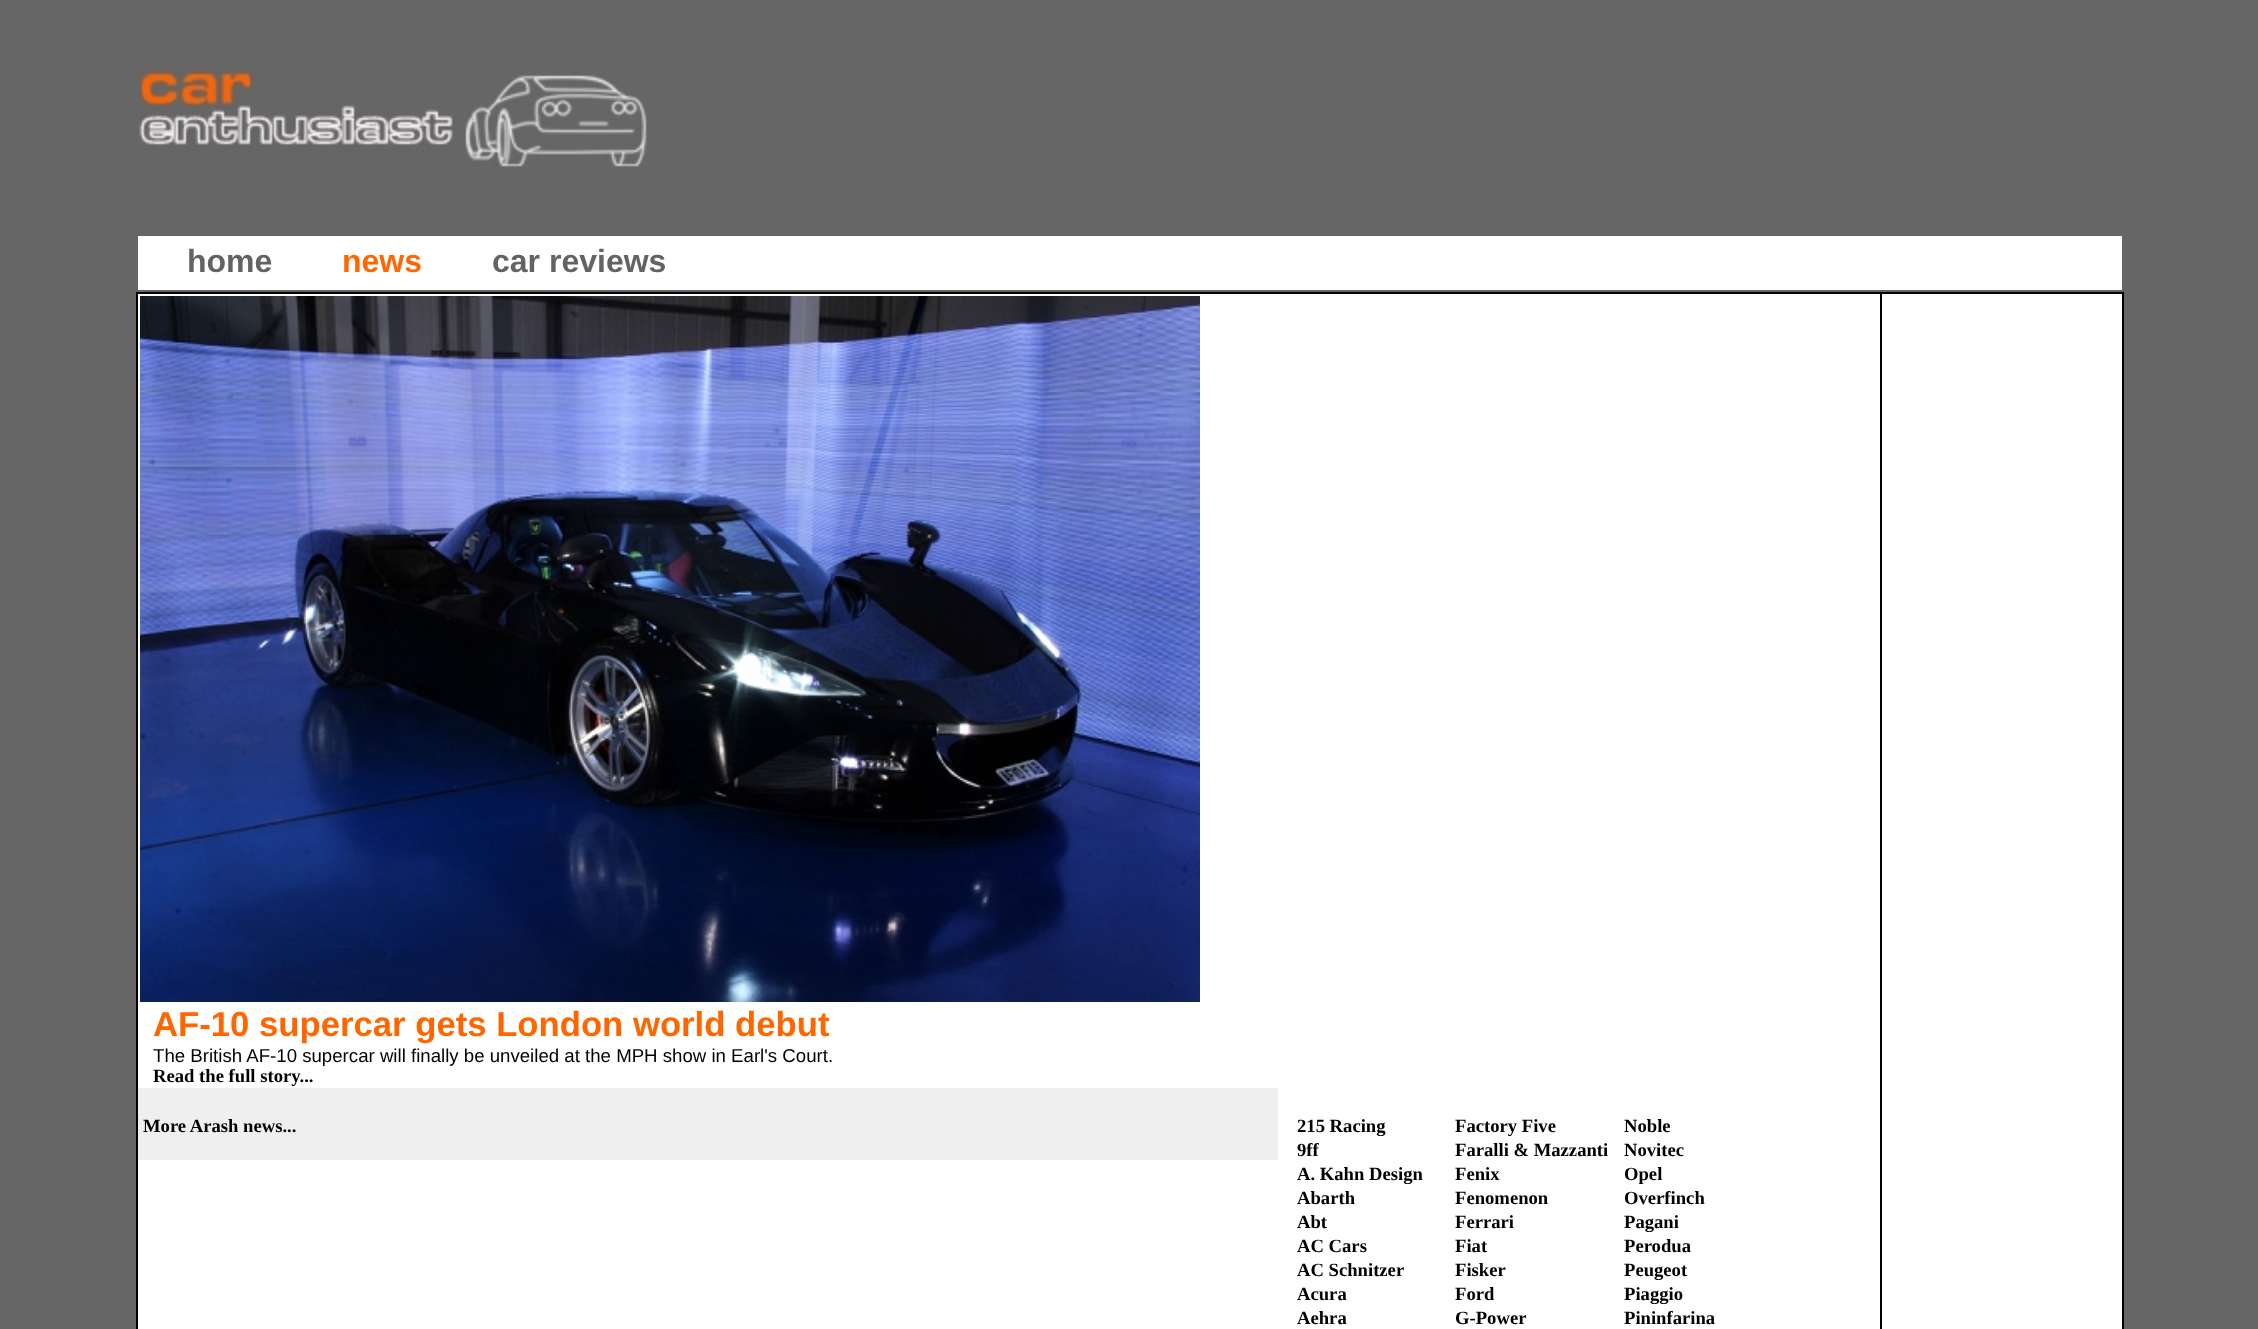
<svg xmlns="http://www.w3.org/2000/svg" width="2258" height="1329">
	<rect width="100%" height="100%" fill="#666666" />
	<image x="139" y="69" width="508" height="98" href="assets/img1.png" />
	<rect x="138" y="236" width="1984" height="54" fill="#FFFFFF" />
	<text x="187" y="272" font-family="Liberation Sans" font-size="32" font-weight="700" fill="#636363">home</text>
	<text x="342" y="272" font-family="Liberation Sans" font-size="32" font-weight="700" fill="#FF6600">news</text>
	<text x="492" y="272" font-family="Liberation Sans" font-size="32" font-weight="700" fill="#636363">car reviews</text>
	<rect x="136" y="292" width="1988" height="1037" fill="#000000" />
	<rect x="138" y="294" width="1742" height="1035" fill="#FFFFFF" />
	<image x="140" y="296" width="1060" height="706" href="assets/img2.png" />
	<text x="153" y="1036" font-family="Liberation Sans" font-size="34.7" font-weight="700" fill="#FF6600">AF-10 supercar gets London world debut</text>
	<text x="153" y="1062" font-family="Liberation Sans" font-size="18.65" fill="#000000">The British AF-10 supercar will finally be unveiled at the MPH show in Earl's Court.</text>
	<text x="153" y="1082" font-family="Liberation Serif" font-size="18.65" font-weight="700" fill="#000000">Read the full story...</text>
	<rect x="138" y="1088" width="1140" height="72" fill="#EFEFEF" />
	<g font-family="Liberation Serif" font-size="18.65" font-weight="700" fill="#000000">
		<text x="143" y="1132">More Arash news...</text>
		<text x="1297" y="1132">215 Racing</text>
		<text x="1297" y="1156">9ff</text>
		<text x="1297" y="1180">A. Kahn Design</text>
		<text x="1297" y="1204">Abarth</text>
		<text x="1297" y="1228">Abt</text>
		<text x="1297" y="1252">AC Cars</text>
		<text x="1297" y="1276">AC Schnitzer</text>
		<text x="1297" y="1300">Acura</text>
		<text x="1297" y="1324">Aehra</text>
		<text x="1455" y="1132">Factory Five</text>
		<text x="1455" y="1156">Faralli &amp; Mazzanti</text>
		<text x="1455" y="1180">Fenix</text>
		<text x="1455" y="1204">Fenomenon</text>
		<text x="1455" y="1228">Ferrari</text>
		<text x="1455" y="1252">Fiat</text>
		<text x="1455" y="1276">Fisker</text>
		<text x="1455" y="1300">Ford</text>
		<text x="1455" y="1324">G-Power</text>
		<text x="1624" y="1132">Noble</text>
		<text x="1624" y="1156">Novitec</text>
		<text x="1624" y="1180">Opel</text>
		<text x="1624" y="1204">Overfinch</text>
		<text x="1624" y="1228">Pagani</text>
		<text x="1624" y="1252">Perodua</text>
		<text x="1624" y="1276">Peugeot</text>
		<text x="1624" y="1300">Piaggio</text>
		<text x="1624" y="1324">Pininfarina</text>
	</g>
	<rect x="1882" y="294" width="240" height="1035" fill="#FFFFFF" />
</svg>
